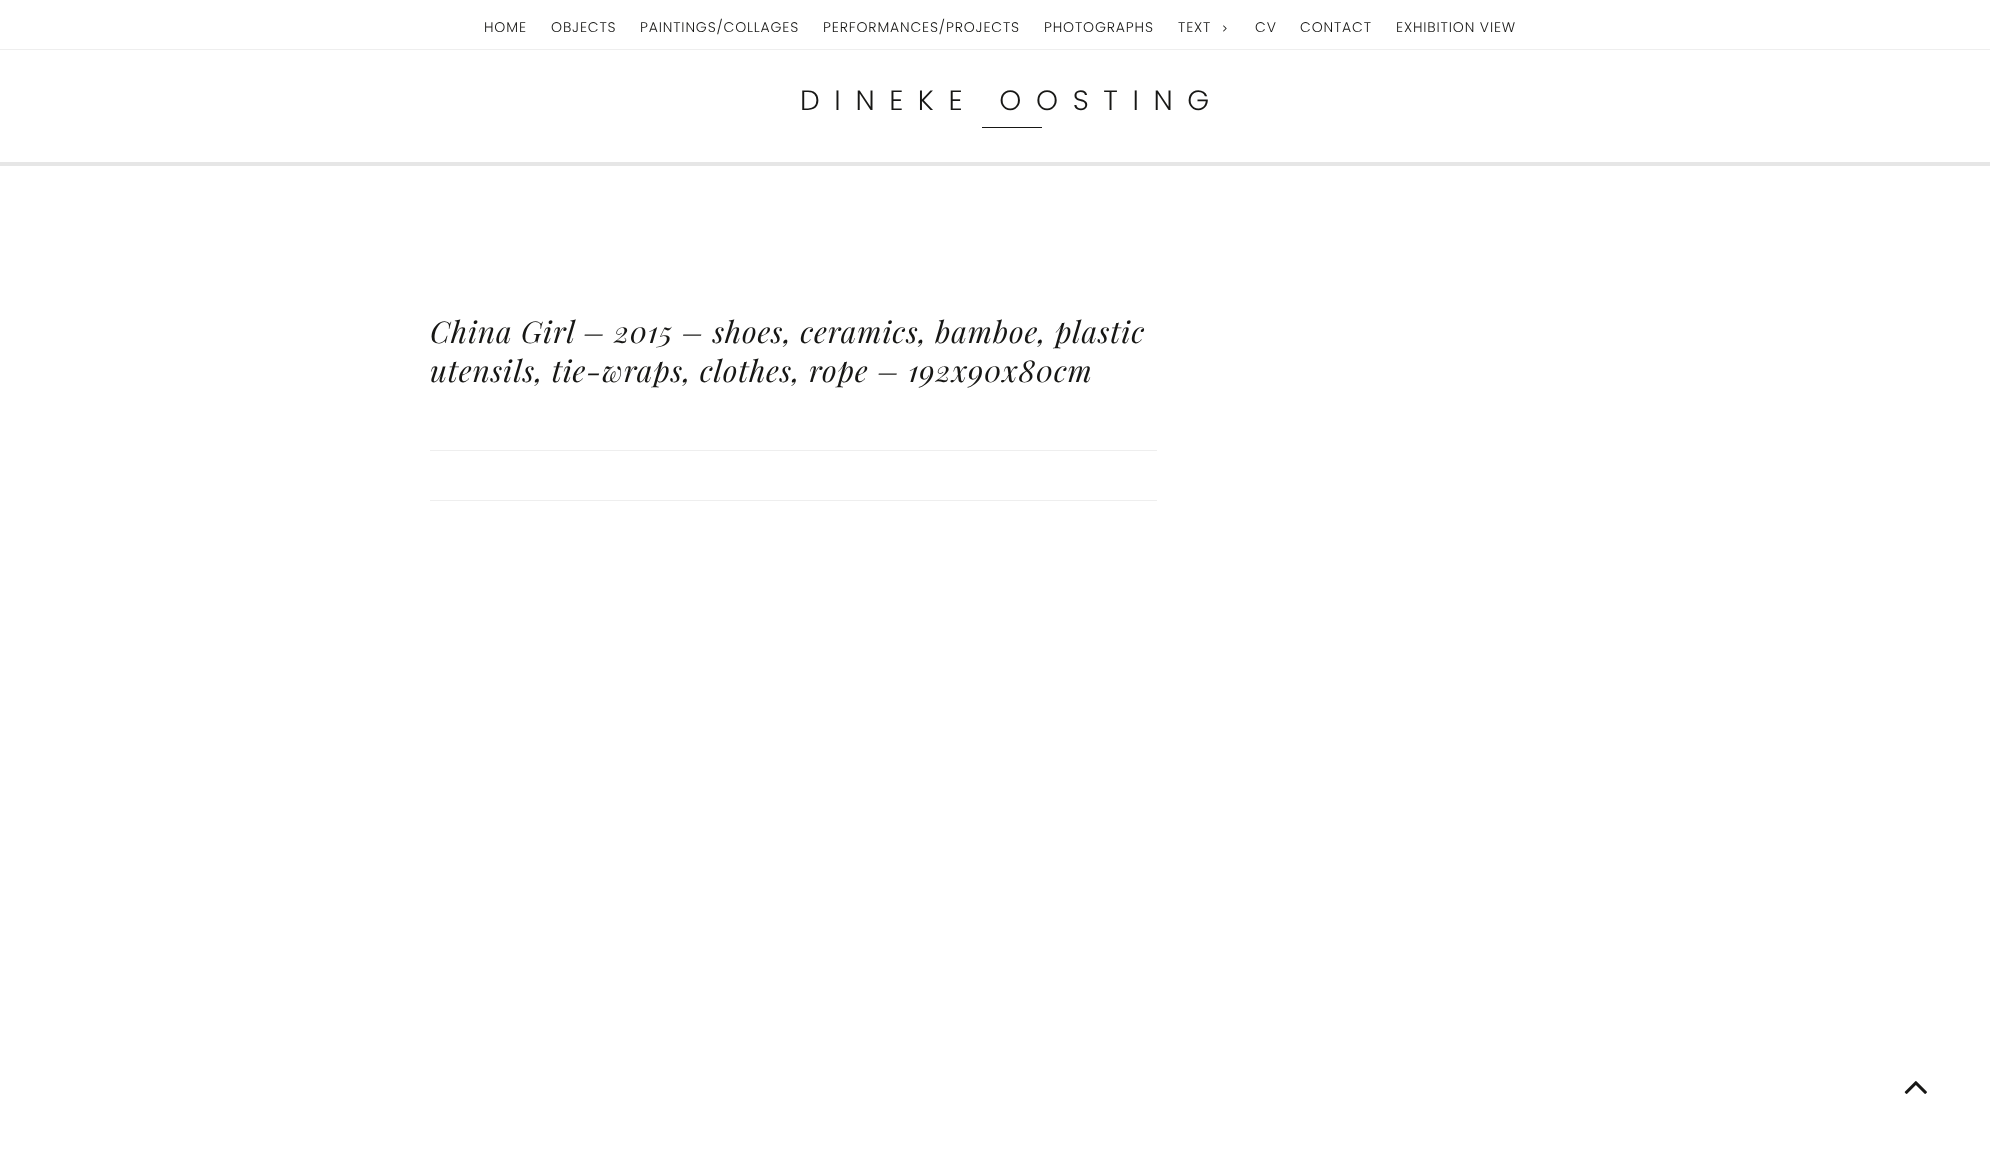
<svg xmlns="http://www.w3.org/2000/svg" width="1990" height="1166">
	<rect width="100%" height="100%" fill="#FFFFFF" />
	<rect x="0" y="49" width="1990" height="1" fill="#EEEEEE" />
	<g font-family="Poppins" font-size="14" font-weight="300" letter-spacing="0.85" fill="#171715">
		<text x="484" y="32">HOME</text>
		<text x="551" y="32">OBJECTS</text>
		<text x="640" y="32">PAINTINGS/COLLAGES</text>
		<text x="823" y="32">PERFORMANCES/PROJECTS</text>
		<text x="1044" y="32">PHOTOGRAPHS</text>
		<text x="1178" y="32">TEXT</text>
	</g>
	<image x="1223" y="25" width="4" height="7" href="assets/img1.png" />
	<g font-family="Poppins" font-size="14" font-weight="300" letter-spacing="0.85" fill="#171715">
		<text x="1255" y="32">CV</text>
		<text x="1300" y="32">CONTACT</text>
		<text x="1396" y="32">EXHIBITION VIEW</text>
	</g>
	<rect x="0" y="162" width="1990" height="4" fill="#E6E6E6" />
	<text x="800" y="110" font-family="Poppins" font-size="28" font-weight="300" letter-spacing="14.6" fill="#171715">DINEKE OOSTING</text>
	<rect x="982" y="127" width="60" height="1" fill="#171715" />
	<g font-family="Playfair Display" font-size="30" font-style="italic" letter-spacing="0.85" fill="#171715">
		<text x="430" y="343">China Girl – 2015 – shoes, ceramics, bamboe, plastic</text>
		<text x="430" y="382">utensils, tie-wraps, clothes, rope – 192x90x80cm</text>
	</g>
	<rect x="430" y="450" width="727" height="1" fill="#EEEEEE" />
	<rect x="430" y="500" width="727" height="1" fill="#EEEEEE" />
	<image x="1904" y="1081" width="23" height="13" href="assets/img2.png" />
</svg>
